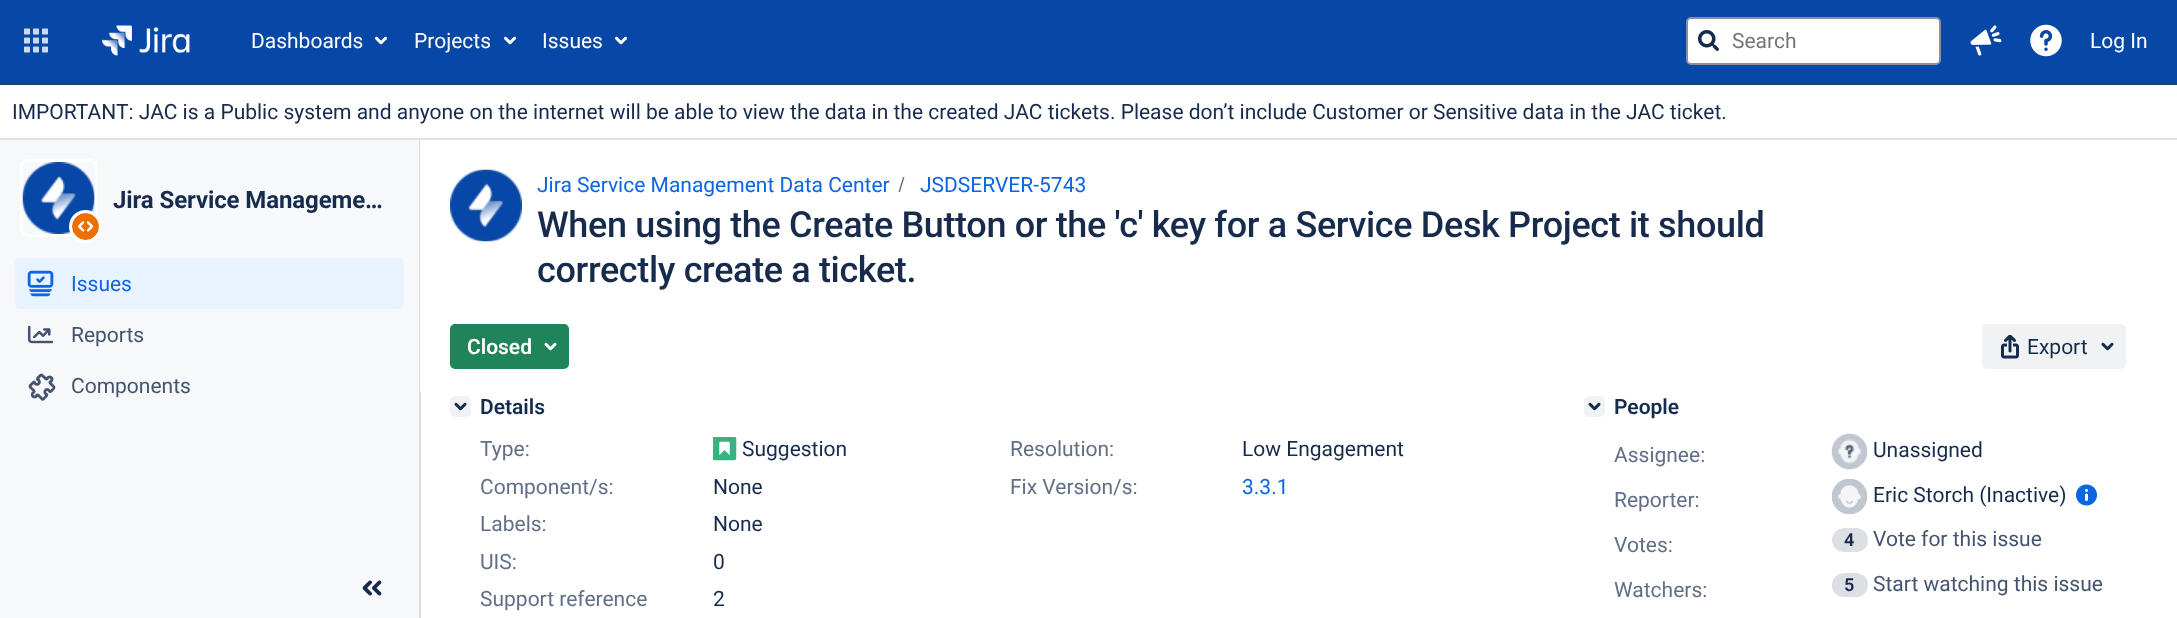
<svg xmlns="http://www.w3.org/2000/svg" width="2177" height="618">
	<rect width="100%" height="100%" fill="#FFFFFF" />
	<rect x="420" y="392" width="1" height="226" fill="#DDDFE5" />
	<rect x="0" y="0" width="2177" height="83" fill="#0747A6" />
	<rect x="0" y="83" width="2177" height="2" fill="#2E3D54" />
	<image x="24" y="28" width="24" height="25" href="assets/img1.png" />
	<image x="102" y="25" width="88" height="31" href="assets/img2.png" />
	<text x="251" y="48" font-family="Roboto" font-size="21" fill="#FFFFFF">Dashboards</text>
	<image x="375" y="36" width="12" height="9" href="assets/img3.png" />
	<text x="414" y="48" font-family="Roboto" font-size="21" fill="#FFFFFF">Projects</text>
	<image x="504" y="36" width="12" height="9" href="assets/img3.png" />
	<text x="542" y="48" font-family="Roboto" font-size="21" fill="#FFFFFF">Issues</text>
	<image x="615" y="36" width="12" height="9" href="assets/img3.png" />
	<rect x="1687" y="18" width="253" height="46" rx="4" fill="#FFFFFF" stroke="#8590A2" stroke-width="2" />
	<image x="1698" y="30" width="21" height="21" href="assets/img4.png" />
	<text x="1732" y="48" font-family="Roboto" font-size="21" fill="#757575">Search</text>
	<image x="1970" y="25" width="32" height="31" href="assets/img5.png" />
	<image x="2030" y="24" width="32" height="33" href="assets/img6.png" />
	<text x="2090" y="48" font-family="Roboto" font-size="21" fill="#FFFFFF">Log In</text>
	<rect x="0" y="138" width="2177" height="2" fill="#DDE0E5" />
	<text x="12" y="119" font-family="Roboto" font-size="21" fill="#172B4D">IMPORTANT: JAC is a Public system and anyone on the internet will be able to view the data in the created JAC tickets. Please don’t include Customer or Sensitive data in the JAC ticket.</text>
	<rect x="0" y="140" width="419" height="478" fill="#F7F8F9" />
	<rect x="419" y="140" width="1" height="478" fill="#D6D9DF" />
	<rect x="21.5" y="160.5" width="75" height="75" rx="6.5" fill="none" stroke="#FFFFFF" stroke-width="3" />
	<image x="22" y="162" width="73" height="72" href="assets/img7.png" />
	<circle cx="85.5" cy="226.5" r="16.5" fill="#FFFFFF" />
	<image x="72" y="213" width="27" height="27" href="assets/img8.png" />
	<text x="113" y="208" font-family="Roboto" font-size="24" font-weight="700" letter-spacing="-0.1" fill="#172B4D">Jira Service Manageme…</text>
	<rect x="15" y="258" width="389" height="51" rx="5" fill="#E9F2FF" />
	<image x="27" y="270" width="27" height="27" href="assets/img9.png" />
	<text x="71" y="291" font-family="Roboto" font-size="21" fill="#0C66E4">Issues</text>
	<image x="27" y="325" width="26" height="19" href="assets/img10.png" />
	<text x="71" y="342" font-family="Roboto" font-size="21" fill="#44546F">Reports</text>
	<image x="28" y="373" width="28" height="28" href="assets/img11.png" />
	<text x="71" y="393" font-family="Roboto" font-size="21" fill="#44546F">Components</text>
	<image x="362" y="580" width="20" height="16" href="assets/img12.png" />
	<image x="450" y="169" width="72" height="73" href="assets/img13.png" />
	<text x="537" y="192" font-family="Roboto" font-size="21" fill="#0C66E4">Jira Service Management Data Center</text>
	<path d="M900 192L904.5 177H903L898.5 192Z" fill="#707070" />
	<text x="920" y="192" font-family="Roboto" font-size="21" fill="#0C66E4">JSDSERVER-5743</text>
	<g font-family="Roboto" font-size="36" font-weight="500" letter-spacing="-0.35" fill="#172B4D">
		<text x="537" y="237">When using the Create Button or the 'c' key for a Service Desk Project it should</text>
		<text x="537" y="282">correctly create a ticket.</text>
	</g>
	<rect x="451" y="325" width="117" height="43" rx="4" fill="#1F845A" stroke="#1F845A" stroke-width="2" />
	<text x="467" y="354" font-family="Roboto" font-size="21" font-weight="600" fill="#FFFFFF">Closed</text>
	<image x="544" y="342" width="13" height="9" href="assets/img14.png" />
	<rect x="1982" y="324" width="144" height="45" rx="5" fill="#F0F2F4" />
	<image x="2001" y="335" width="18" height="24" href="assets/img15.png" />
	<text x="2027" y="354" font-family="Roboto" font-size="21" fill="#172B4D">Export</text>
	<image x="2101" y="342" width="13" height="9" href="assets/img16.png" />
	<rect x="450" y="396" width="21" height="21" rx="5" fill="#F0F2F4" />
	<image x="454" y="402" width="13" height="9" href="assets/img17.png" />
	<text x="480" y="414" font-family="Roboto" font-size="21" font-weight="600" fill="#172B4D">Details</text>
	<text x="480" y="456" font-family="Roboto" font-size="21" fill="#626F86">Type:</text>
	<image x="713" y="437" width="24" height="24" href="assets/img18.png" />
	<text x="742" y="456" font-family="Roboto" font-size="21" fill="#172B4D">Suggestion</text>
	<text x="1010" y="456" font-family="Roboto" font-size="21" fill="#626F86">Resolution:</text>
	<text x="1242" y="456" font-family="Roboto" font-size="21" fill="#172B4D">Low Engagement</text>
	<text x="480" y="494" font-family="Roboto" font-size="21" fill="#626F86">Component/s:</text>
	<text x="713" y="494" font-family="Roboto" font-size="21" fill="#172B4D">None</text>
	<text x="1010" y="494" font-family="Roboto" font-size="21" fill="#626F86">Fix Version/s:</text>
	<text x="1242" y="494" font-family="Roboto" font-size="21" fill="#0C66E4">3.3.1</text>
	<text x="480" y="531" font-family="Roboto" font-size="21" fill="#626F86">Labels:</text>
	<text x="713" y="531" font-family="Roboto" font-size="21" fill="#172B4D">None</text>
	<text x="480" y="569" font-family="Roboto" font-size="21" fill="#626F86">UIS:</text>
	<text x="713" y="569" font-family="Roboto" font-size="21" fill="#172B4D">0</text>
	<text x="480" y="606" font-family="Roboto" font-size="21" fill="#626F86">Support reference</text>
	<text x="713" y="606" font-family="Roboto" font-size="21" fill="#172B4D">2</text>
	<rect x="1584" y="396" width="21" height="21" rx="5" fill="#F0F2F4" />
	<image x="1588" y="402" width="13" height="9" href="assets/img17.png" />
	<text x="1614" y="414" font-family="Roboto" font-size="21" font-weight="600" fill="#172B4D">People</text>
	<text x="1614" y="462" font-family="Roboto" font-size="21" fill="#626F86">Assignee:</text>
	<image x="1831" y="433" width="37" height="37" href="assets/img19.png" />
	<text x="1873" y="457" font-family="Roboto" font-size="21" fill="#172B4D">Unassigned</text>
	<text x="1614" y="507" font-family="Roboto" font-size="21" fill="#626F86">Reporter:</text>
	<image x="1832" y="479" width="36" height="36" href="assets/img20.png" />
	<text x="1873" y="502" font-family="Roboto" font-size="21" fill="#172B4D">Eric Storch (Inactive)</text>
	<image x="2076" y="484" width="21" height="22" href="assets/img21.png" />
	<text x="1614" y="552" font-family="Roboto" font-size="21" fill="#626F86">Votes:</text>
	<rect x="1832" y="528" width="36" height="24" rx="12" fill="#DCDFE4" />
	<text x="1844" y="546" font-family="Roboto" font-size="18" font-weight="600" fill="#172B4D">4</text>
	<text x="1873" y="546" font-family="Roboto" font-size="21" fill="#44546F">Vote for this issue</text>
	<text x="1614" y="597" font-family="Roboto" font-size="21" fill="#626F86">Watchers:</text>
	<rect x="1832" y="573" width="36" height="24" rx="12" fill="#DCDFE4" />
	<text x="1844" y="591" font-family="Roboto" font-size="18" font-weight="600" fill="#172B4D">5</text>
	<text x="1873" y="591" font-family="Roboto" font-size="21" fill="#44546F">Start watching this issue</text>
</svg>
